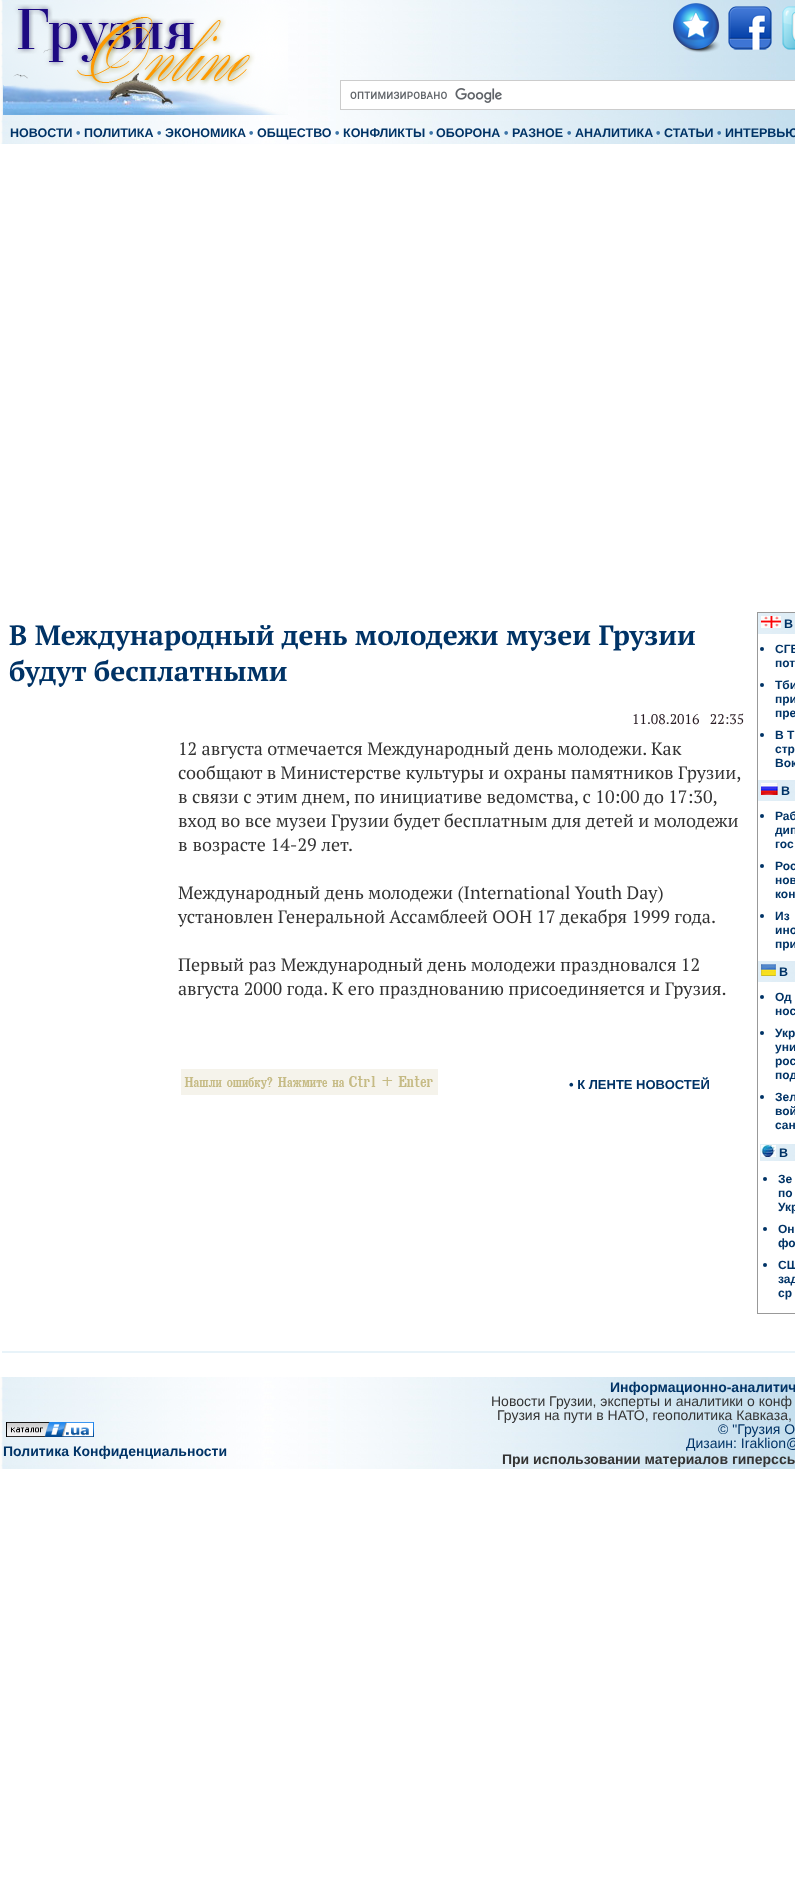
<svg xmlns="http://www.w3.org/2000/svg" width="795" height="1894">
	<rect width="100%" height="100%" fill="#FFFFFF" />
	<image x="0" y="0" width="795" height="144" href="assets/img1.png" />
	<image x="3" y="4" width="285" height="111" href="assets/img2.png" />
	<image x="673" y="3" width="47" height="50" href="assets/img3.png" />
	<image x="728" y="6" width="44" height="44" href="assets/img4.png" />
	<image x="782" y="6" width="13" height="44" href="assets/img5.png" />
	<rect x="340.5" y="80.5" width="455" height="29" fill="#FFFFFF" stroke="#CCCCCC" />
	<image x="350" y="88" width="152" height="15" href="assets/img6.png" />
	<text x="10" y="137" font-family="Liberation Sans" font-size="12.5" font-weight="700" fill="#003366">НОВОСТИ</text>
	<text x="76" y="137" font-family="Liberation Sans" font-size="12.5" font-weight="700" fill="#3D75A8">•</text>
	<text x="84" y="137" font-family="Liberation Sans" font-size="12.5" font-weight="700" fill="#003366">ПОЛИТИКА</text>
	<text x="157" y="137" font-family="Liberation Sans" font-size="12.5" font-weight="700" fill="#3D75A8">•</text>
	<text x="165" y="137" font-family="Liberation Sans" font-size="12.5" font-weight="700" fill="#003366">ЭКОНОМИКА</text>
	<text x="249" y="137" font-family="Liberation Sans" font-size="12.5" font-weight="700" fill="#3D75A8">•</text>
	<text x="257" y="137" font-family="Liberation Sans" font-size="12.5" font-weight="700" fill="#003366">ОБЩЕСТВО</text>
	<text x="335" y="137" font-family="Liberation Sans" font-size="12.5" font-weight="700" fill="#3D75A8">•</text>
	<text x="343" y="137" font-family="Liberation Sans" font-size="12.5" font-weight="700" fill="#003366">КОНФЛИКТЫ</text>
	<text x="429" y="137" font-family="Liberation Sans" font-size="12.5" font-weight="700" fill="#3D75A8">•</text>
	<text x="436" y="137" font-family="Liberation Sans" font-size="12.5" font-weight="700" fill="#003366">ОБОРОНА</text>
	<text x="504" y="137" font-family="Liberation Sans" font-size="12.5" font-weight="700" fill="#3D75A8">•</text>
	<text x="512" y="137" font-family="Liberation Sans" font-size="12.5" font-weight="700" fill="#003366">РАЗНОЕ</text>
	<text x="567" y="137" font-family="Liberation Sans" font-size="12.5" font-weight="700" fill="#3D75A8">•</text>
	<text x="575" y="137" font-family="Liberation Sans" font-size="12.5" font-weight="700" fill="#003366">АНАЛИТИКА</text>
	<text x="656" y="137" font-family="Liberation Sans" font-size="12.5" font-weight="700" fill="#3D75A8">•</text>
	<text x="664" y="137" font-family="Liberation Sans" font-size="12.5" font-weight="700" fill="#003366">СТАТЬИ</text>
	<text x="717" y="137" font-family="Liberation Sans" font-size="12.5" font-weight="700" fill="#3D75A8">•</text>
	<text x="725" y="137" font-family="Liberation Sans" font-size="12.5" font-weight="700" fill="#003366">ИНТЕРВЬЮ</text>
	<g font-family="PT Serif" font-size="28" font-weight="700" fill="#003366">
		<text x="9" y="645">В Международный день молодежи музеи Грузии</text>
		<text x="9" y="681">будут бесплатными</text>
	</g>
	<text x="632" y="724" font-family="PT Serif" font-size="14" fill="#291C24" xml:space="preserve">11.08.2016   22:35</text>
	<g font-family="PT Serif" font-size="18" fill="#333333">
		<text x="178" y="755">12 августа отмечается Международный день молодежи. Как</text>
		<text x="178" y="779">сообщают в Министерстве культуры и охраны памятников Грузии,</text>
		<text x="178" y="803">в связи с этим днем, по инициативе ведомства, с 10:00 до 17:30,</text>
		<text x="178" y="827">вход во все музеи Грузии будет бесплатным для детей и молодежи</text>
		<text x="178" y="851" word-spacing="0.5">в возрасте 14-29 лет.</text>
		<text x="178" y="899">Международный день молодежи (International Youth Day)</text>
		<text x="178" y="923">установлен Генеральной Ассамблеей ООН 17 декабря 1999 года.</text>
		<text x="178" y="971">Первый раз Международный день молодежи праздновался 12</text>
		<text x="178" y="995">августа 2000 года. К его празднованию присоединяется и Грузия.</text>
	</g>
	<image x="181" y="1069" width="257" height="26" href="assets/img7.png" />
	<text x="569" y="1089" font-family="Liberation Sans" font-size="13" font-weight="700" fill="#003366">• К ЛЕНТЕ НОВОСТЕЙ</text>
	<rect x="757.5" y="612.5" width="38" height="701" fill="none" stroke="#999999" />
	<image x="758" y="613" width="37" height="21" href="assets/img8.png" />
	<image x="761" y="616" width="20" height="12" href="assets/img9.png" />
	<text x="784" y="628" font-family="Liberation Sans" font-size="12.5" font-weight="700" fill="#003366">В</text>
	<circle cx="762" cy="649" r="2" fill="#003366" />
	<g font-family="Liberation Sans" font-size="12" font-weight="700" fill="#003366">
		<text x="775" y="653">СГБ</text>
		<text x="775" y="667">пот</text>
	</g>
	<circle cx="762" cy="685" r="2" fill="#003366" />
	<g font-family="Liberation Sans" font-size="12" font-weight="700" fill="#003366">
		<text x="775" y="689">Тби</text>
		<text x="775" y="703">при</text>
		<text x="775" y="717">пре</text>
	</g>
	<circle cx="762" cy="735" r="2" fill="#003366" />
	<g font-family="Liberation Sans" font-size="12" font-weight="700" fill="#003366">
		<text x="775" y="739">В Т</text>
		<text x="775" y="753">стр</text>
		<text x="775" y="767">Вок</text>
	</g>
	<image x="758" y="780" width="37" height="21" href="assets/img8.png" />
	<image x="761" y="783" width="17" height="12" href="assets/img10.png" />
	<text x="781" y="795" font-family="Liberation Sans" font-size="12.5" font-weight="700" fill="#003366">В</text>
	<circle cx="762" cy="816" r="2" fill="#003366" />
	<g font-family="Liberation Sans" font-size="12" font-weight="700" fill="#003366">
		<text x="775" y="820">Раб</text>
		<text x="775" y="834">дип</text>
		<text x="775" y="848">гос</text>
	</g>
	<circle cx="762" cy="866" r="2" fill="#003366" />
	<g font-family="Liberation Sans" font-size="12" font-weight="700" fill="#003366">
		<text x="775" y="870">Рос</text>
		<text x="775" y="884">нов</text>
		<text x="775" y="898">кон</text>
	</g>
	<circle cx="762" cy="916" r="2" fill="#003366" />
	<g font-family="Liberation Sans" font-size="12" font-weight="700" fill="#003366">
		<text x="775" y="920">Из</text>
		<text x="775" y="934">ино</text>
		<text x="775" y="948">при</text>
	</g>
	<image x="758" y="961" width="37" height="21" href="assets/img8.png" />
	<image x="761" y="964" width="15" height="12" href="assets/img11.png" />
	<text x="779" y="976" font-family="Liberation Sans" font-size="12.5" font-weight="700" fill="#003366">В</text>
	<circle cx="762" cy="997" r="2" fill="#003366" />
	<g font-family="Liberation Sans" font-size="12" font-weight="700" fill="#003366">
		<text x="775" y="1001">Од</text>
		<text x="775" y="1015">нос</text>
	</g>
	<circle cx="762" cy="1033" r="2" fill="#003366" />
	<g font-family="Liberation Sans" font-size="12" font-weight="700" fill="#003366">
		<text x="775" y="1037">Укр</text>
		<text x="775" y="1051">уни</text>
		<text x="775" y="1065">рос</text>
		<text x="775" y="1079">под</text>
	</g>
	<circle cx="762" cy="1097" r="2" fill="#003366" />
	<g font-family="Liberation Sans" font-size="12" font-weight="700" fill="#003366">
		<text x="775" y="1101">Зел</text>
		<text x="775" y="1115">вой</text>
		<text x="775" y="1129">сан</text>
	</g>
	<image x="760" y="1144" width="35" height="17" href="assets/img12.png" />
	<image x="761" y="1145" width="15" height="12" href="assets/img13.png" />
	<text x="779" y="1157" font-family="Liberation Sans" font-size="12.5" font-weight="700" fill="#003366">В</text>
	<circle cx="765" cy="1179" r="2" fill="#003366" />
	<g font-family="Liberation Sans" font-size="12" font-weight="700" fill="#003366">
		<text x="778" y="1183">Зе</text>
		<text x="778" y="1197">по</text>
		<text x="778" y="1211">Укр</text>
	</g>
	<circle cx="765" cy="1229" r="2" fill="#003366" />
	<g font-family="Liberation Sans" font-size="12" font-weight="700" fill="#003366">
		<text x="778" y="1233">Он</text>
		<text x="778" y="1247">фо</text>
	</g>
	<circle cx="765" cy="1265" r="2" fill="#003366" />
	<g font-family="Liberation Sans" font-size="12" font-weight="700" fill="#003366">
		<text x="778" y="1269">СШ</text>
		<text x="778" y="1283">зад</text>
		<text x="778" y="1297">ср</text>
	</g>
	<rect x="2" y="1351" width="793" height="2" fill="#E8F3F9" />
	<image x="0" y="1377" width="795" height="92" href="assets/img14.png" />
	<image x="6" y="1422" width="88" height="15" href="assets/img15.png" />
	<g font-family="Liberation Sans" font-size="14" font-weight="700" fill="#003366">
		<text x="3" y="1456">Политика Конфиденциальности</text>
		<text x="610" y="1392">Информационно-аналитич</text>
	</g>
	<g font-family="Liberation Sans" font-size="14" fill="#333333">
		<text x="491" y="1406">Новости Грузии, эксперты и аналитики о конф</text>
		<text x="497" y="1420">Грузия на пути в НАТО, геополитика Кавказа,</text>
	</g>
	<g font-family="Liberation Sans" font-size="14" fill="#003366">
		<text x="718" y="1434">© "Грузия O</text>
		<text x="686" y="1448">Дизаин: Iraklion@</text>
	</g>
	<text x="502" y="1464" font-family="Liberation Sans" font-size="14" font-weight="700" fill="#333333">При использовании материалов гиперссы</text>
</svg>
